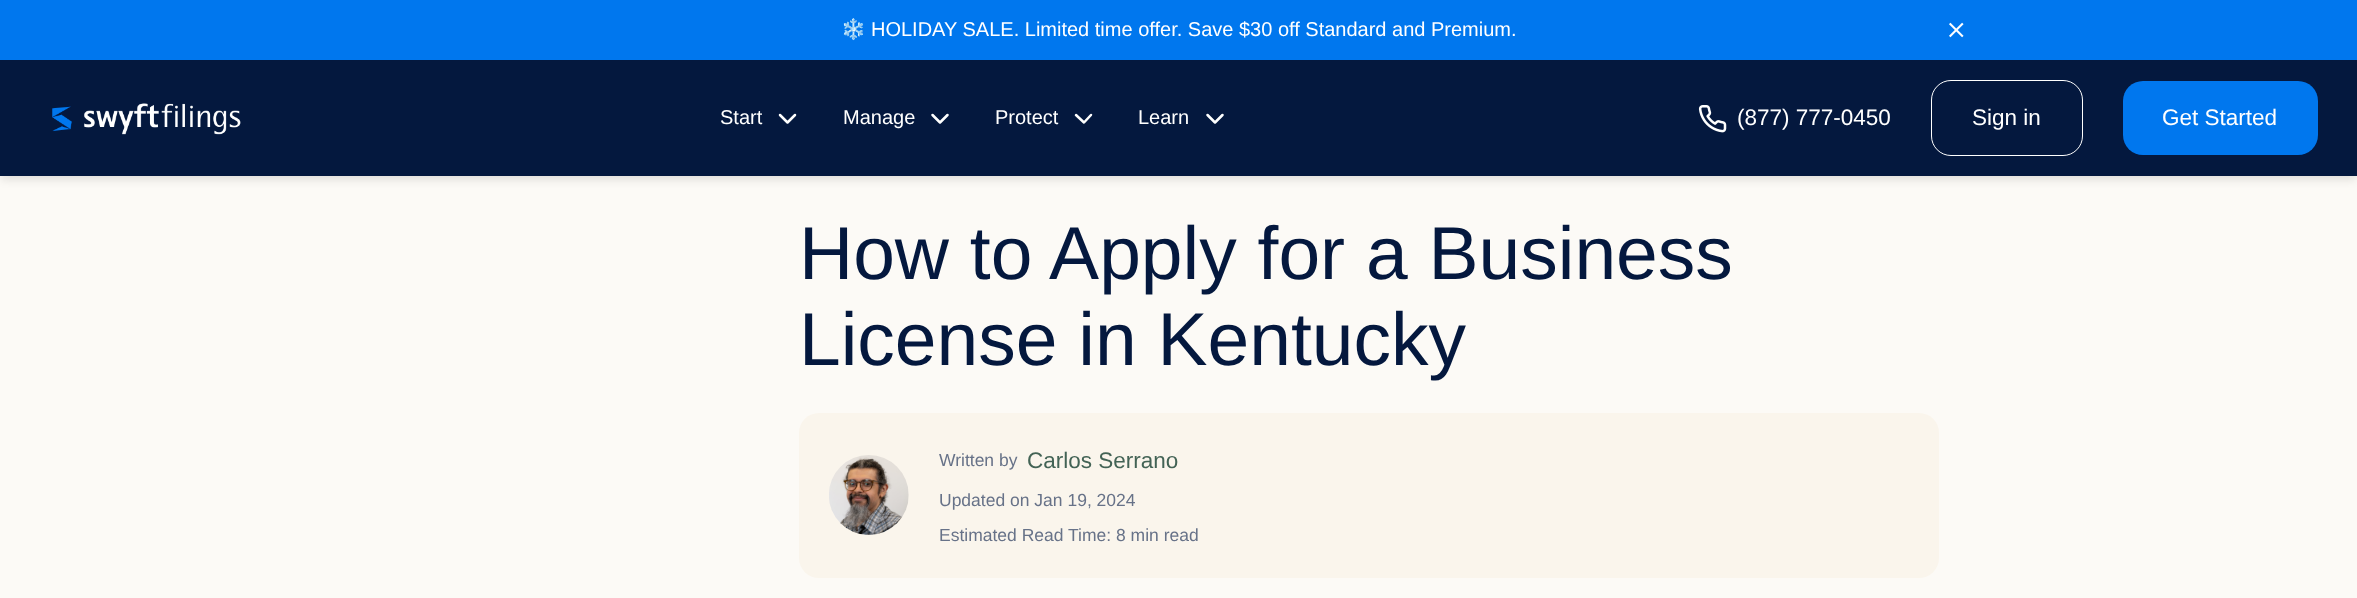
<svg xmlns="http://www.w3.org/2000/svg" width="2357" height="598">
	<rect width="100%" height="100%" fill="#FCFAF6" />
	<rect x="1" y="66" width="2355" height="114" fill="#000000" fill-opacity="0.1" filter="blur(4px)" />
	<rect x="0" y="0" width="2357" height="60" fill="#0077EE" />
	<text x="841" y="36" font-family="Noto Color Emoji" font-size="20" fill="#FFFFFF">❄️</text>
	<text x="871" y="36" font-family="Liberation Sans" font-size="20" fill="#FFFFFF">HOLIDAY SALE. Limited time offer. Save $30 off Standard and Premium.</text>
	<image x="1949" y="22" width="15" height="16" href="assets/img1.png" />
	<rect x="0" y="60" width="2357" height="116" fill="#04183E" />
	<image x="52" y="103" width="189" height="32" href="assets/img2.png" />
	<text x="720" y="124" font-family="Liberation Sans" font-size="20" fill="#FFFFFF">Start</text>
	<path d="M780 115L787.5 122.5L795 115" fill="none" stroke="#FFFFFF" stroke-width="2.5" stroke-linecap="round" stroke-linejoin="round" />
	<text x="843" y="124" font-family="Liberation Sans" font-size="20" fill="#FFFFFF">Manage</text>
	<path d="M932.5 115L940 122.5L947.5 115" fill="none" stroke="#FFFFFF" stroke-width="2.5" stroke-linecap="round" stroke-linejoin="round" />
	<text x="995" y="124" font-family="Liberation Sans" font-size="20" fill="#FFFFFF">Protect</text>
	<path d="M1076 115L1084 122.5L1091 115" fill="none" stroke="#FFFFFF" stroke-width="2.5" stroke-linecap="round" stroke-linejoin="round" />
	<text x="1138" y="124" font-family="Liberation Sans" font-size="20" fill="#FFFFFF">Learn</text>
	<path d="M1207.5 115L1215 122.5L1222.5 115" fill="none" stroke="#FFFFFF" stroke-width="2.5" stroke-linecap="round" stroke-linejoin="round" />
	<image x="1698" y="105" width="29" height="28" href="assets/img3.png" />
	<text x="1737" y="125" font-family="Liberation Sans" font-size="22.5" fill="#FFFFFF">(877) 777-0450</text>
	<rect x="1931.5" y="80.5" width="151" height="75" rx="19.5" fill="none" stroke="#FFFFFF" />
	<text x="1972" y="125" font-family="Liberation Sans" font-size="22.5" fill="#FFFFFF">Sign in</text>
	<rect x="2123" y="81" width="195" height="74" rx="20" fill="#0077EE" />
	<text x="2162" y="125" font-family="Liberation Sans" font-size="22.5" fill="#FFFFFF">Get Started</text>
	<g font-family="Liberation Sans" font-size="75" fill="#04183E">
		<text x="799" y="279">How to Apply for a Business</text>
		<text x="799" y="365">License in Kentucky</text>
	</g>
	<rect x="799" y="413" width="1140" height="165" rx="20" fill="#FAF5EC" />
	<image x="829" y="455" width="80" height="80" href="assets/img4.png" />
	<text x="939" y="466" font-family="Liberation Sans" font-size="17.5" fill="#677288">Written by</text>
	<text x="1027" y="468" font-family="Liberation Sans" font-size="22.5" fill="#436355">Carlos Serrano</text>
	<g font-family="Liberation Sans" font-size="17.5" fill="#677288">
		<text x="939" y="506">Updated on Jan 19, 2024</text>
		<text x="939" y="541">Estimated Read Time: 8 min read</text>
	</g>
</svg>
